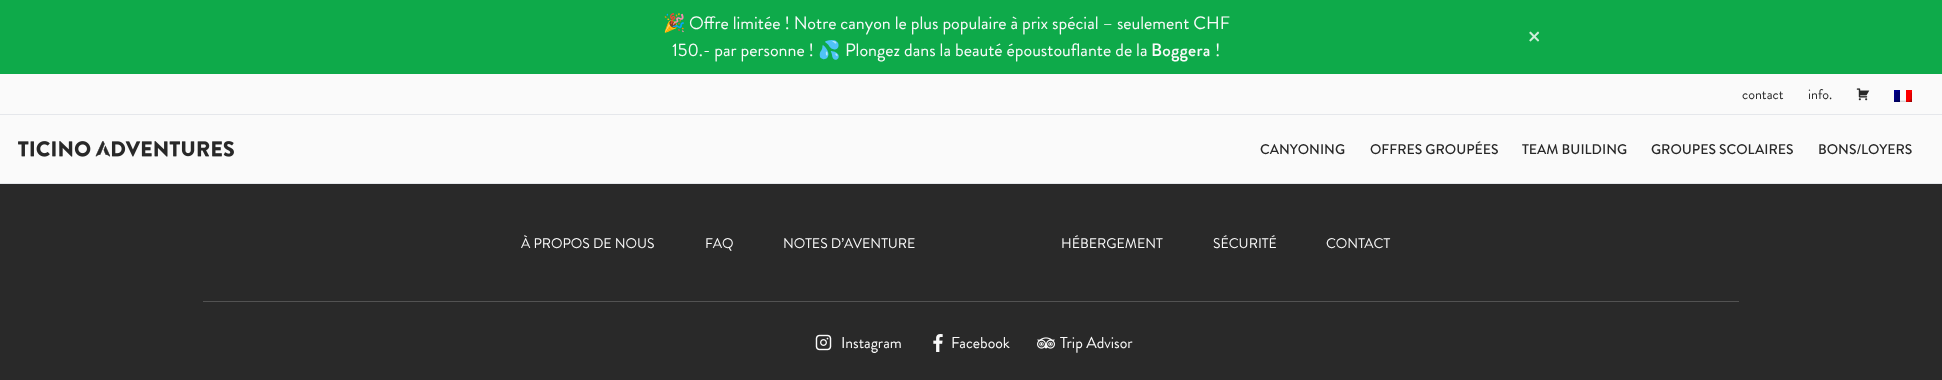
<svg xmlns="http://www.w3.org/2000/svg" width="1942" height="380">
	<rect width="100%" height="100%" fill="#292929" />
	<rect x="0" y="0" width="1942" height="74" fill="#0EAA4A" />
	<text x="663" y="29" font-family="Noto Color Emoji" font-size="18" fill="#FAFAFA">🎉</text>
	<g font-family="Brandon Grotesque" font-size="18" fill="#FAFAFA">
		<text x="689" y="29">Offre limitée ! Notre canyon le plus populaire à prix spécial – seulement CHF</text>
		<text x="672" y="56">150.- par personne !</text>
	</g>
	<text x="818" y="56" font-family="Noto Color Emoji" font-size="18" fill="#FAFAFA">💦</text>
	<text x="845" y="56" font-family="Brandon Grotesque" font-size="18" fill="#FAFAFA">Plongez dans la beauté époustouflante de la</text>
	<text x="1151" y="56" font-family="Brandon Grotesque" font-size="18" font-weight="500" letter-spacing="0.25" fill="#FAFAFA">Boggera</text>
	<text x="1215" y="56" font-family="Brandon Grotesque" font-size="18" fill="#FAFAFA">!</text>
	<text x="1527" y="47" font-family="Brandon Grotesque" font-size="30" fill="#CFEEDB">×</text>
	<rect x="0" y="74" width="1942" height="109" fill="#FAFAFA" />
	<rect x="0" y="114" width="1942" height="1" fill="#E5E7EB" />
	<g font-family="Brandon Grotesque" font-size="14" fill="#282828">
		<text x="1742" y="99">contact</text>
		<text x="1808" y="99">info.</text>
	</g>
	<image x="1856" y="88" width="14" height="13" href="assets/img1.png" />
	<image x="1894" y="90" width="18" height="12" href="assets/img2.png" />
	<rect x="0" y="183" width="1942" height="1" fill="#E5E7EB" />
	<image x="18" y="141" width="216" height="16" href="assets/img3.png" />
	<g font-family="Brandon Grotesque" font-size="14" font-weight="500" fill="#282828">
		<text x="1260" y="154">CANYONING</text>
		<text x="1370" y="154">OFFRES GROUPÉES</text>
		<text x="1522" y="154">TEAM BUILDING</text>
		<text x="1651" y="154">GROUPES SCOLAIRES</text>
		<text x="1818" y="154">BONS/LOYERS</text>
	</g>
	<g font-family="Brandon Grotesque" font-size="14" fill="#FAFAFA">
		<text x="521" y="248">À PROPOS DE NOUS</text>
		<text x="705" y="248">FAQ</text>
		<text x="783" y="248">NOTES D’AVENTURE</text>
		<text x="1061" y="248">HÉBERGEMENT</text>
		<text x="1213" y="248">SÉCURITÉ</text>
		<text x="1326" y="248">CONTACT</text>
	</g>
	<rect x="203" y="301" width="1536" height="1" fill="#525252" />
	<image x="815" y="334" width="17" height="17" href="assets/img4.png" />
	<text x="841" y="348" font-family="Brandon Grotesque" font-size="15.75" fill="#FAFAFA">Instagram</text>
	<image x="933" y="334" width="10" height="18" href="assets/img5.png" />
	<text x="951" y="348" font-family="Brandon Grotesque" font-size="15.75" fill="#FAFAFA">Facebook</text>
	<image x="1037" y="337" width="18" height="12" href="assets/img6.png" />
	<text x="1060" y="348" font-family="Brandon Grotesque" font-size="15.75" fill="#FAFAFA">Trip Advisor</text>
</svg>
